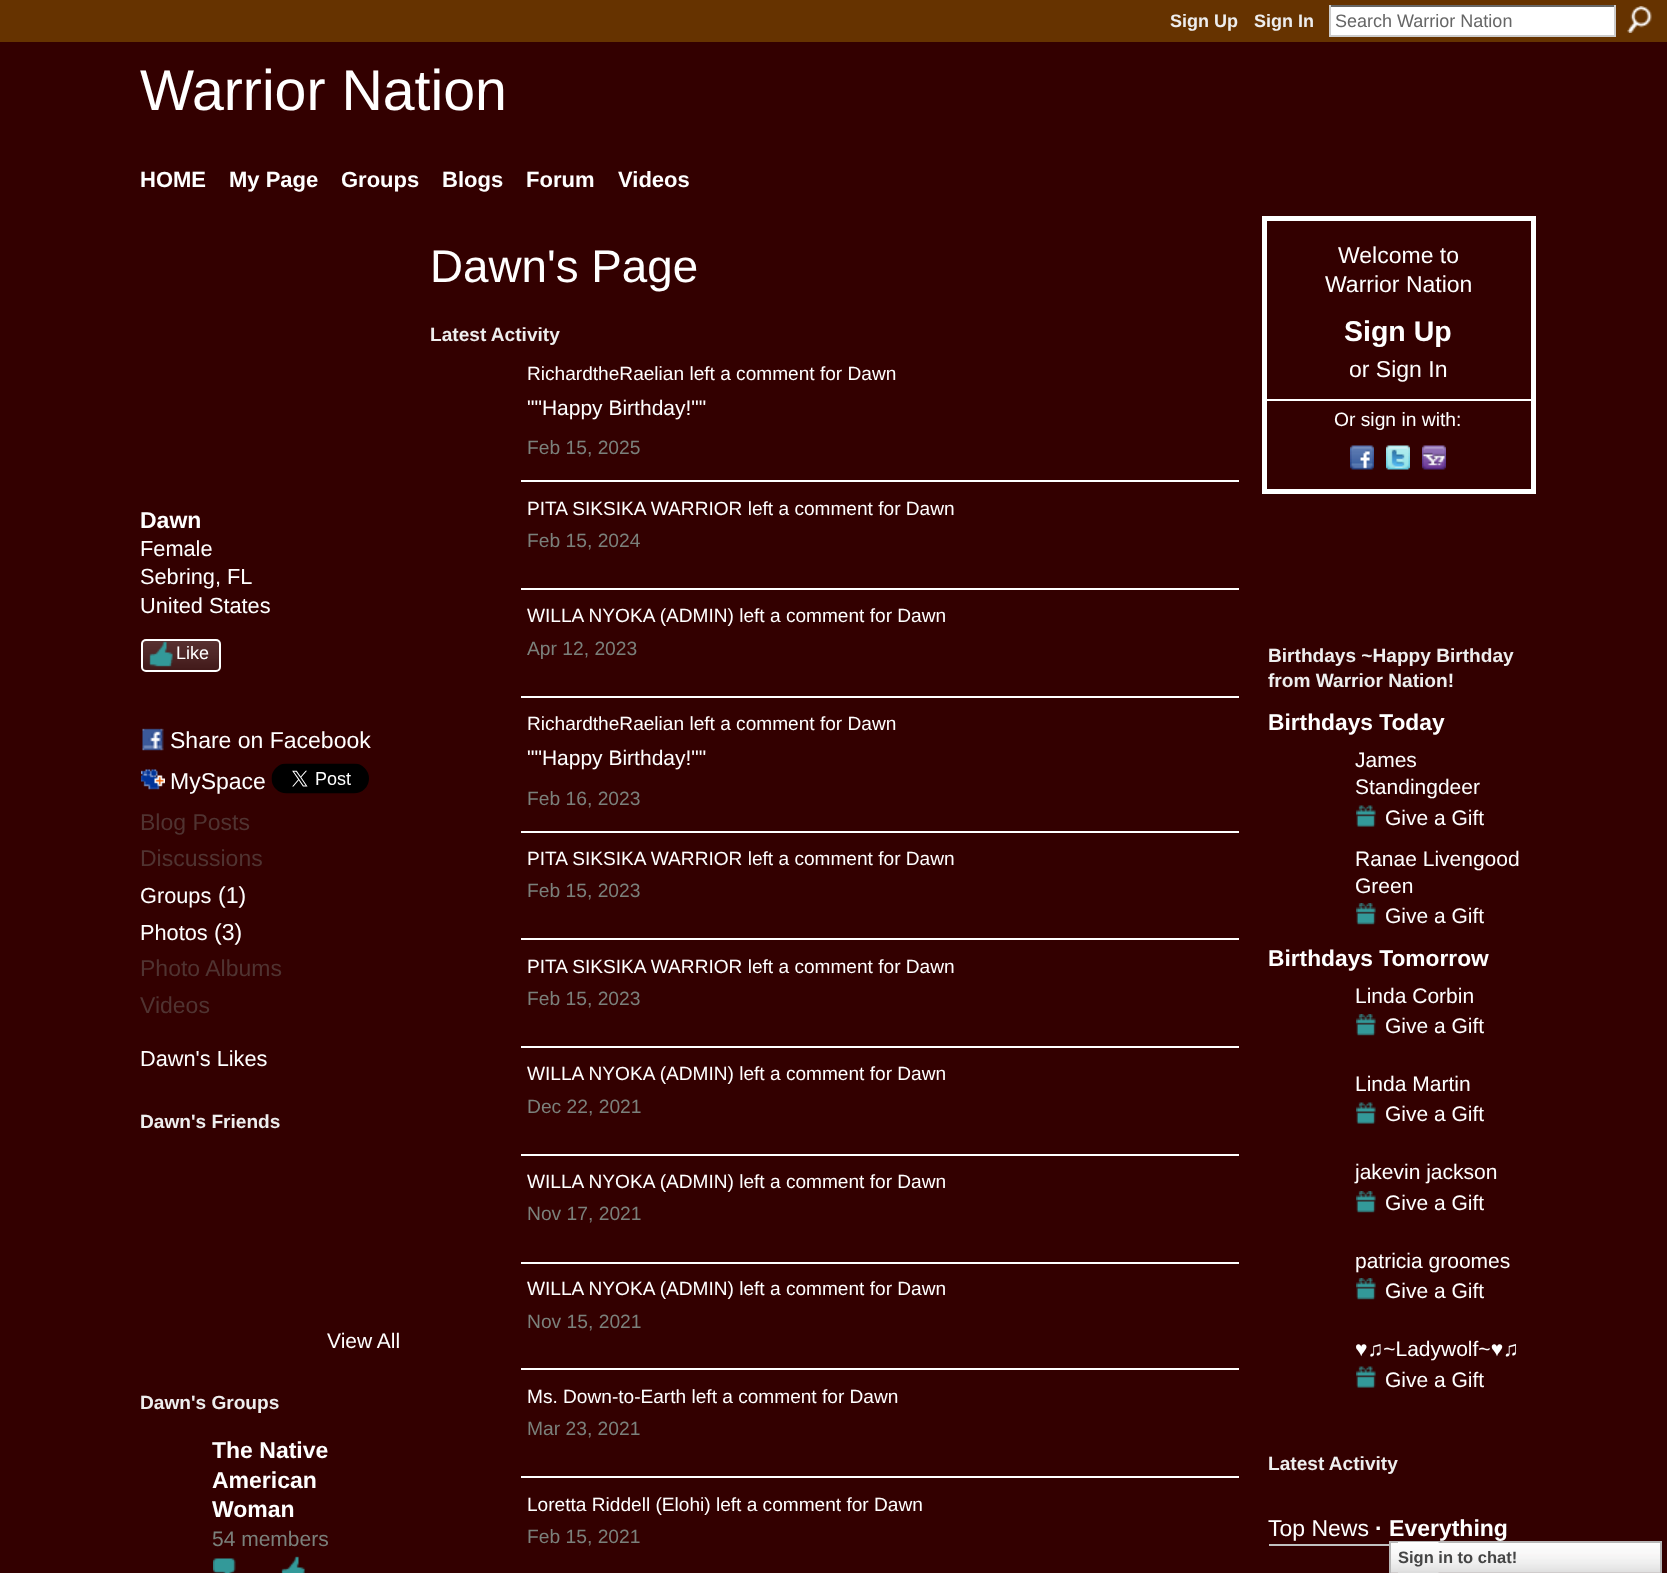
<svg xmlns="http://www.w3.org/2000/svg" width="1667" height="1573">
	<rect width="100%" height="100%" fill="#330000" />
	<rect x="0" y="0" width="1667" height="42" fill="#663300" />
	<g font-family="Liberation Sans" font-size="18" font-weight="700" fill="#EEEEEE">
		<text x="1170" y="27">Sign Up</text>
		<text x="1254" y="27">Sign In</text>
	</g>
	<rect x="1331" y="7" width="283" height="28" fill="#FFFFFF" />
	<rect x="1329" y="5" width="287" height="2" fill="#666666" />
	<rect x="1614" y="5" width="2" height="31" fill="#CCCCCC" />
	<rect x="1329" y="35" width="287" height="2" fill="#CCCCCC" />
	<rect x="1329" y="5" width="2" height="31" fill="#CCCCCC" />
	<text x="1335" y="27" font-family="Liberation Sans" font-size="18" fill="#666666">Search Warrior Nation</text>
	<image x="1627" y="6" width="25" height="27" href="assets/img1.png" />
	<text x="140" y="110" font-family="Liberation Sans" font-size="57.25" fill="#FFFFFF">Warrior Nation</text>
	<g font-family="Liberation Sans" font-size="22" font-weight="700" fill="#FFFFFF">
		<text x="140" y="187">HOME</text>
		<text x="229" y="187">My Page</text>
		<text x="341" y="187">Groups</text>
		<text x="442" y="187">Blogs</text>
		<text x="526" y="187">Forum</text>
		<text x="618" y="187">Videos</text>
	</g>
	<text x="140" y="528" font-family="Liberation Sans" font-size="23" font-weight="700" fill="#FFFFFF">Dawn</text>
	<g font-family="Liberation Sans" font-size="21.75" fill="#FFFFFF">
		<text x="140" y="556">Female</text>
		<text x="140" y="584">Sebring, FL</text>
		<text x="140" y="613">United States</text>
	</g>
	<image x="141" y="640" width="80" height="32" href="assets/img2.png" />
	<rect x="142" y="640" width="78" height="31" rx="4" fill="none" stroke="#FFFFFF" stroke-width="2" />
	<image x="149" y="641" width="24" height="26" href="assets/img3.png" />
	<text x="176" y="659" font-family="Liberation Sans" font-size="18" fill="#FFFFFF">Like</text>
	<image x="142" y="728" width="22" height="23" href="assets/img4.png" />
	<text x="170" y="748" font-family="Liberation Sans" font-size="23" fill="#FFFFFF">Share on Facebook</text>
	<image x="141" y="769" width="24" height="21" href="assets/img5.png" />
	<text x="170" y="789" font-family="Liberation Sans" font-size="23" fill="#FFFFFF">MySpace</text>
	<image x="271" y="763" width="98" height="31" href="assets/img6.png" />
	<g font-family="Liberation Sans" font-size="23" fill="#503331">
		<text x="140" y="830">Blog Posts</text>
		<text x="140" y="866">Discussions</text>
	</g>
	<text x="140" y="903" font-family="Liberation Sans" font-size="21.75" fill="#FFFFFF">Groups</text>
	<text x="218" y="903" font-family="Liberation Sans" font-size="23" fill="#FFFFFF">(1)</text>
	<text x="140" y="940" font-family="Liberation Sans" font-size="21.75" fill="#FFFFFF">Photos</text>
	<text x="214" y="940" font-family="Liberation Sans" font-size="23" fill="#FFFFFF">(3)</text>
	<g font-family="Liberation Sans" font-size="23" fill="#503331">
		<text x="140" y="976">Photo Albums</text>
		<text x="140" y="1013">Videos</text>
	</g>
	<text x="140" y="1066" font-family="Liberation Sans" font-size="21.75" fill="#FFFFFF">Dawn's Likes</text>
	<text x="140" y="1128" font-family="Liberation Sans" font-size="19.1" font-weight="700" fill="#EEEEEE">Dawn's Friends</text>
	<text x="327" y="1348" font-family="Liberation Sans" font-size="21" fill="#FFFFFF">View All</text>
	<text x="140" y="1409" font-family="Liberation Sans" font-size="19.1" font-weight="700" fill="#EEEEEE">Dawn's Groups</text>
	<g font-family="Liberation Sans" font-size="23" font-weight="700" fill="#FFFFFF">
		<text x="212" y="1458">The Native</text>
		<text x="212" y="1488">American</text>
		<text x="212" y="1517">Woman</text>
	</g>
	<text x="212" y="1546" font-family="Liberation Sans" font-size="21" fill="#7B807B">54 members</text>
	<image x="213" y="1558" width="23" height="15" href="assets/img7.png" />
	<image x="281" y="1556" width="24" height="17" href="assets/img8.png" />
	<text x="430" y="282" font-family="Liberation Sans" font-size="45.75" fill="#FFFFFF">Dawn's Page</text>
	<text x="430" y="341" font-family="Liberation Sans" font-size="19.1" font-weight="700" fill="#EEEEEE">Latest Activity</text>
	<rect x="521" y="480" width="718" height="2" fill="#FFFFFF" />
	<text x="527" y="380" font-family="Liberation Sans" font-size="19.1" fill="#FFFFFF">RichardtheRaelian left a comment for Dawn</text>
	<text x="527" y="415" font-family="Liberation Sans" font-size="21" fill="#FFFFFF">""Happy Birthday!""</text>
	<text x="527" y="454" font-family="Liberation Sans" font-size="19.25" fill="#7B807B">Feb 15, 2025</text>
	<rect x="521" y="588" width="718" height="2" fill="#FFFFFF" />
	<text x="527" y="515" font-family="Liberation Sans" font-size="19.1" fill="#FFFFFF">PITA SIKSIKA WARRIOR left a comment for Dawn</text>
	<text x="527" y="547" font-family="Liberation Sans" font-size="19.25" fill="#7B807B">Feb 15, 2024</text>
	<rect x="521" y="696" width="718" height="2" fill="#FFFFFF" />
	<text x="527" y="622" font-family="Liberation Sans" font-size="19.1" fill="#FFFFFF">WILLA NYOKA (ADMIN) left a comment for Dawn</text>
	<text x="527" y="655" font-family="Liberation Sans" font-size="19.25" fill="#7B807B">Apr 12, 2023</text>
	<rect x="521" y="831" width="718" height="2" fill="#FFFFFF" />
	<text x="527" y="730" font-family="Liberation Sans" font-size="19.1" fill="#FFFFFF">RichardtheRaelian left a comment for Dawn</text>
	<text x="527" y="765" font-family="Liberation Sans" font-size="21" fill="#FFFFFF">""Happy Birthday!""</text>
	<text x="527" y="805" font-family="Liberation Sans" font-size="19.25" fill="#7B807B">Feb 16, 2023</text>
	<rect x="521" y="938" width="718" height="2" fill="#FFFFFF" />
	<text x="527" y="865" font-family="Liberation Sans" font-size="19.1" fill="#FFFFFF">PITA SIKSIKA WARRIOR left a comment for Dawn</text>
	<text x="527" y="897" font-family="Liberation Sans" font-size="19.25" fill="#7B807B">Feb 15, 2023</text>
	<rect x="521" y="1046" width="718" height="2" fill="#FFFFFF" />
	<text x="527" y="973" font-family="Liberation Sans" font-size="19.1" fill="#FFFFFF">PITA SIKSIKA WARRIOR left a comment for Dawn</text>
	<text x="527" y="1005" font-family="Liberation Sans" font-size="19.25" fill="#7B807B">Feb 15, 2023</text>
	<rect x="521" y="1154" width="718" height="2" fill="#FFFFFF" />
	<text x="527" y="1080" font-family="Liberation Sans" font-size="19.1" fill="#FFFFFF">WILLA NYOKA (ADMIN) left a comment for Dawn</text>
	<text x="527" y="1113" font-family="Liberation Sans" font-size="19.25" fill="#7B807B">Dec 22, 2021</text>
	<rect x="521" y="1262" width="718" height="2" fill="#FFFFFF" />
	<text x="527" y="1188" font-family="Liberation Sans" font-size="19.1" fill="#FFFFFF">WILLA NYOKA (ADMIN) left a comment for Dawn</text>
	<text x="527" y="1220" font-family="Liberation Sans" font-size="19.25" fill="#7B807B">Nov 17, 2021</text>
	<rect x="521" y="1368" width="718" height="2" fill="#FFFFFF" />
	<text x="527" y="1295" font-family="Liberation Sans" font-size="19.1" fill="#FFFFFF">WILLA NYOKA (ADMIN) left a comment for Dawn</text>
	<text x="527" y="1328" font-family="Liberation Sans" font-size="19.25" fill="#7B807B">Nov 15, 2021</text>
	<rect x="521" y="1476" width="718" height="2" fill="#FFFFFF" />
	<text x="527" y="1403" font-family="Liberation Sans" font-size="19.1" fill="#FFFFFF">Ms. Down-to-Earth left a comment for Dawn</text>
	<text x="527" y="1435" font-family="Liberation Sans" font-size="19.25" fill="#7B807B">Mar 23, 2021</text>
	<text x="527" y="1511" font-family="Liberation Sans" font-size="19.1" fill="#FFFFFF">Loretta Riddell (Elohi) left a comment for Dawn</text>
	<text x="527" y="1543" font-family="Liberation Sans" font-size="19.25" fill="#7B807B">Feb 15, 2021</text>
	<rect x="1264.5" y="218.5" width="269" height="273" fill="none" stroke="#FFFFFF" stroke-width="5" />
	<g font-family="Liberation Sans" font-size="23" fill="#FFFFFF">
		<text x="1338" y="263">Welcome to</text>
		<text x="1325" y="292">Warrior Nation</text>
	</g>
	<text x="1344" y="341" font-family="Liberation Sans" font-size="28.5" font-weight="700" fill="#FFFFFF">Sign Up</text>
	<text x="1349" y="377" font-family="Liberation Sans" font-size="23" fill="#FFFFFF">or Sign In</text>
	<rect x="1266" y="399" width="266" height="2" fill="#FFFFFF" />
	<text x="1334" y="426" font-family="Liberation Sans" font-size="19.25" fill="#FFFFFF">Or sign in with:</text>
	<image x="1350" y="445" width="24" height="25" href="assets/img9.png" />
	<image x="1386" y="445" width="24" height="25" href="assets/img10.png" />
	<image x="1422" y="445" width="24" height="25" href="assets/img11.png" />
	<g font-family="Liberation Sans" font-size="19.1" font-weight="700" fill="#EEEEEE">
		<text x="1268" y="662">Birthdays ~Happy Birthday</text>
		<text x="1268" y="687">from Warrior Nation!</text>
	</g>
	<text x="1268" y="730" font-family="Liberation Sans" font-size="22.75" font-weight="700" fill="#FFFFFF">Birthdays Today</text>
	<g font-family="Liberation Sans" font-size="21" fill="#FFFFFF">
		<text x="1355" y="767">James</text>
		<text x="1355" y="794">Standingdeer</text>
	</g>
	<image x="1356" y="805" width="20" height="22" href="assets/img12.png" />
	<g font-family="Liberation Sans" font-size="21" fill="#FFFFFF">
		<text x="1385" y="825">Give a Gift</text>
		<text x="1355" y="866">Ranae Livengood</text>
		<text x="1355" y="893">Green</text>
	</g>
	<image x="1356" y="903" width="20" height="22" href="assets/img13.png" />
	<text x="1385" y="923" font-family="Liberation Sans" font-size="21" fill="#FFFFFF">Give a Gift</text>
	<text x="1268" y="966" font-family="Liberation Sans" font-size="22.75" font-weight="700" fill="#FFFFFF">Birthdays Tomorrow</text>
	<text x="1355" y="1003" font-family="Liberation Sans" font-size="21" fill="#FFFFFF">Linda Corbin</text>
	<image x="1356" y="1014" width="20" height="22" href="assets/img13.png" />
	<g font-family="Liberation Sans" font-size="21" fill="#FFFFFF">
		<text x="1385" y="1033">Give a Gift</text>
		<text x="1355" y="1091">Linda Martin</text>
	</g>
	<image x="1356" y="1102" width="20" height="22" href="assets/img12.png" />
	<g font-family="Liberation Sans" font-size="21" fill="#FFFFFF">
		<text x="1385" y="1121">Give a Gift</text>
		<text x="1355" y="1179">jakevin jackson</text>
	</g>
	<image x="1356" y="1191" width="20" height="22" href="assets/img13.png" />
	<g font-family="Liberation Sans" font-size="21" fill="#FFFFFF">
		<text x="1385" y="1210">Give a Gift</text>
		<text x="1355" y="1268">patricia groomes</text>
	</g>
	<image x="1356" y="1278" width="20" height="22" href="assets/img13.png" />
	<g font-family="Liberation Sans" font-size="21" fill="#FFFFFF">
		<text x="1385" y="1298">Give a Gift</text>
		<text x="1355" y="1356">♥♫~Ladywolf~♥♫</text>
	</g>
	<image x="1356" y="1366" width="20" height="22" href="assets/img12.png" />
	<text x="1385" y="1387" font-family="Liberation Sans" font-size="21" fill="#FFFFFF">Give a Gift</text>
	<text x="1268" y="1470" font-family="Liberation Sans" font-size="19.1" font-weight="700" fill="#EEEEEE">Latest Activity</text>
	<rect x="1269" y="1544" width="120" height="2" fill="#C0C0C0" />
	<text x="1268" y="1536" font-family="Liberation Sans" font-size="23" fill="#FFFFFF">Top News</text>
	<text x="1375" y="1536" font-family="Liberation Sans" font-size="23" font-weight="700" fill="#FFFFFF">· Everything</text>
	<image x="1391" y="1543" width="269" height="30" href="assets/img14.png" />
	<rect x="1390" y="1542" width="271" height="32" fill="none" stroke="#B7B7B7" stroke-width="2" />
	<image x="1398" y="1542" width="41" height="31" href="assets/img15.png" />
	<text x="1398" y="1563" font-family="Liberation Sans" font-size="16.5" font-weight="700" fill="#454545">Sign in to chat!</text>
</svg>
